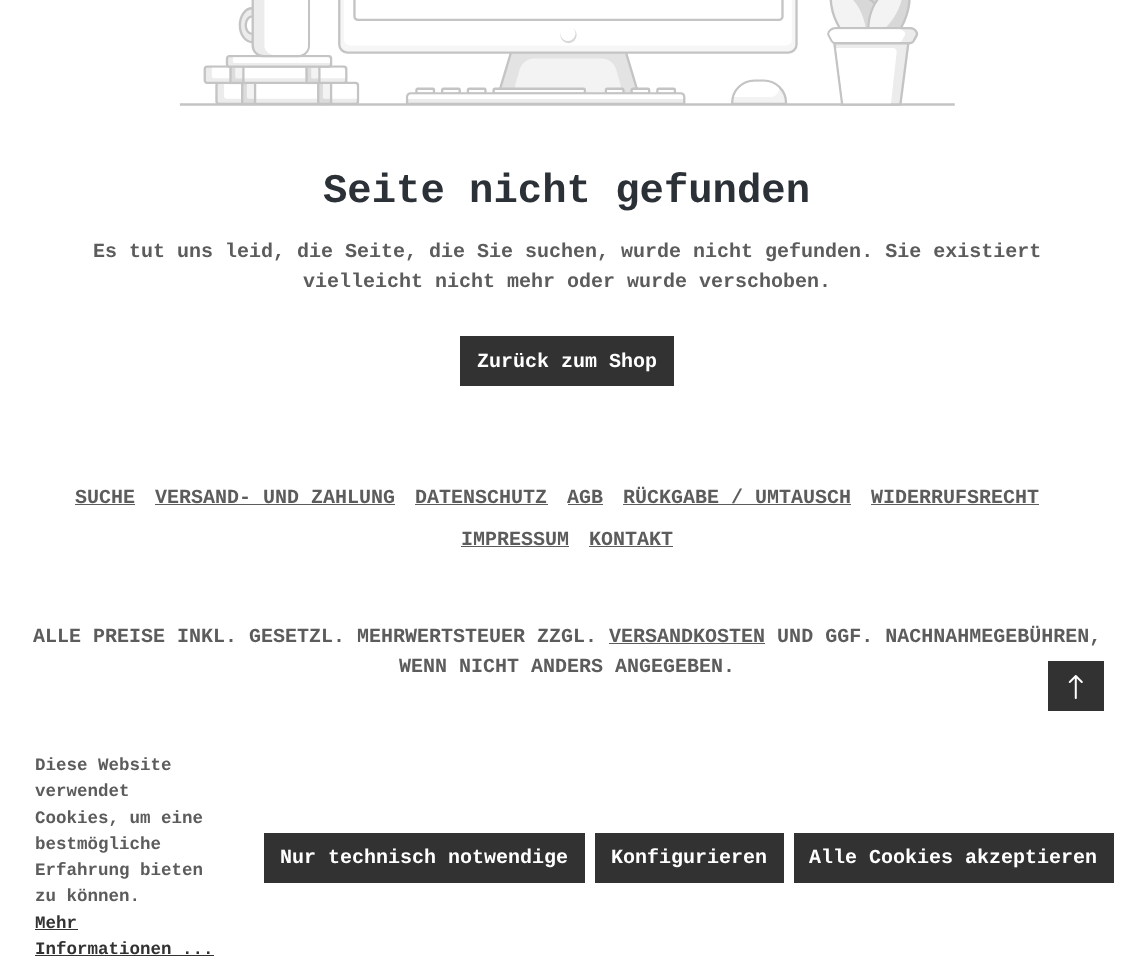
<svg xmlns="http://www.w3.org/2000/svg" width="1133" height="972">
	<rect width="100%" height="100%" fill="#FFFFFF" />
	<image x="179" y="0" width="776" height="106" href="assets/img1.png" />
	<text x="323" y="202" font-family="Liberation Mono" font-size="40.6" font-weight="700" fill="#2B3136">Seite nicht gefunden</text>
	<g font-family="Liberation Mono" font-size="20" font-weight="700" fill="#5C5C5C">
		<text x="93" y="257">Es tut uns leid, die Seite, die Sie suchen, wurde nicht gefunden. Sie existiert</text>
		<text x="303" y="287">vielleicht nicht mehr oder wurde verschoben.</text>
	</g>
	<rect x="460" y="336" width="214" height="50" fill="#323232" />
	<text x="477" y="367" font-family="Liberation Mono" font-size="20" font-weight="700" fill="#FFFFFF">Zurück zum Shop</text>
	<text x="75" y="503" font-family="Liberation Mono" font-size="20" font-weight="700" fill="#5C5C5C">SUCHE</text>
	<rect x="75" y="504" width="60" height="1" fill="#5C5C5C" />
	<text x="155" y="503" font-family="Liberation Mono" font-size="20" font-weight="700" fill="#5C5C5C">VERSAND- UND ZAHLUNG</text>
	<rect x="155" y="504" width="240" height="1" fill="#5C5C5C" />
	<text x="415" y="503" font-family="Liberation Mono" font-size="20" font-weight="700" fill="#5C5C5C">DATENSCHUTZ</text>
	<rect x="415" y="504" width="133" height="1" fill="#5C5C5C" />
	<text x="567" y="503" font-family="Liberation Mono" font-size="20" font-weight="700" fill="#5C5C5C">AGB</text>
	<rect x="568" y="504" width="35" height="1" fill="#5C5C5C" />
	<text x="623" y="503" font-family="Liberation Mono" font-size="20" font-weight="700" fill="#5C5C5C">RÜCKGABE / UMTAUSCH</text>
	<rect x="623" y="504" width="228" height="1" fill="#5C5C5C" />
	<text x="871" y="503" font-family="Liberation Mono" font-size="20" font-weight="700" fill="#5C5C5C">WIDERRUFSRECHT</text>
	<rect x="871" y="504" width="168" height="1" fill="#5C5C5C" />
	<text x="461" y="545" font-family="Liberation Mono" font-size="20" font-weight="700" fill="#5C5C5C">IMPRESSUM</text>
	<rect x="461" y="546" width="108" height="1" fill="#5C5C5C" />
	<text x="589" y="545" font-family="Liberation Mono" font-size="20" font-weight="700" fill="#5C5C5C">KONTAKT</text>
	<rect x="589" y="546" width="84" height="1" fill="#5C5C5C" />
	<text x="33" y="642" font-family="Liberation Mono" font-size="20" font-weight="700" fill="#5C5C5C">ALLE PREISE INKL. GESETZL. MEHRWERTSTEUER ZZGL. VERSANDKOSTEN UND GGF. NACHNAHMEGEBÜHREN,</text>
	<rect x="609" y="643" width="156" height="1" fill="#5C5C5C" />
	<text x="399" y="672" font-family="Liberation Mono" font-size="20" font-weight="700" fill="#5C5C5C">WENN NICHT ANDERS ANGEGEBEN.</text>
	<rect x="1048" y="661" width="56" height="50" fill="#323232" />
	<image x="1068" y="675" width="15" height="24" href="assets/img2.png" />
	<g font-family="Liberation Mono" font-size="17.5" font-weight="700" fill="#5C5C5C">
		<text x="35" y="770">Diese Website</text>
		<text x="35" y="796">verwendet</text>
		<text x="35" y="823">Cookies, um eine</text>
		<text x="35" y="849">bestmögliche</text>
		<text x="35" y="875">Erfahrung bieten</text>
		<text x="35" y="901">zu können.</text>
	</g>
	<text x="35" y="928" font-family="Liberation Mono" font-size="17.5" font-weight="700" fill="#323232">Mehr</text>
	<rect x="35" y="929" width="43" height="1" fill="#323232" />
	<text x="35" y="954" font-family="Liberation Mono" font-size="17.5" font-weight="700" fill="#323232">Informationen ...</text>
	<rect x="35" y="955" width="179" height="1" fill="#323232" />
	<rect x="264" y="833" width="321" height="50" fill="#323232" />
	<text x="280" y="863" font-family="Liberation Mono" font-size="20" font-weight="700" fill="#FFFFFF">Nur technisch notwendige</text>
	<rect x="595" y="833" width="189" height="50" fill="#323232" />
	<text x="611" y="863" font-family="Liberation Mono" font-size="20" font-weight="700" fill="#FFFFFF">Konfigurieren</text>
	<rect x="794" y="833" width="320" height="50" fill="#323232" />
	<text x="809" y="863" font-family="Liberation Mono" font-size="20" font-weight="700" fill="#FFFFFF">Alle Cookies akzeptieren</text>
</svg>
